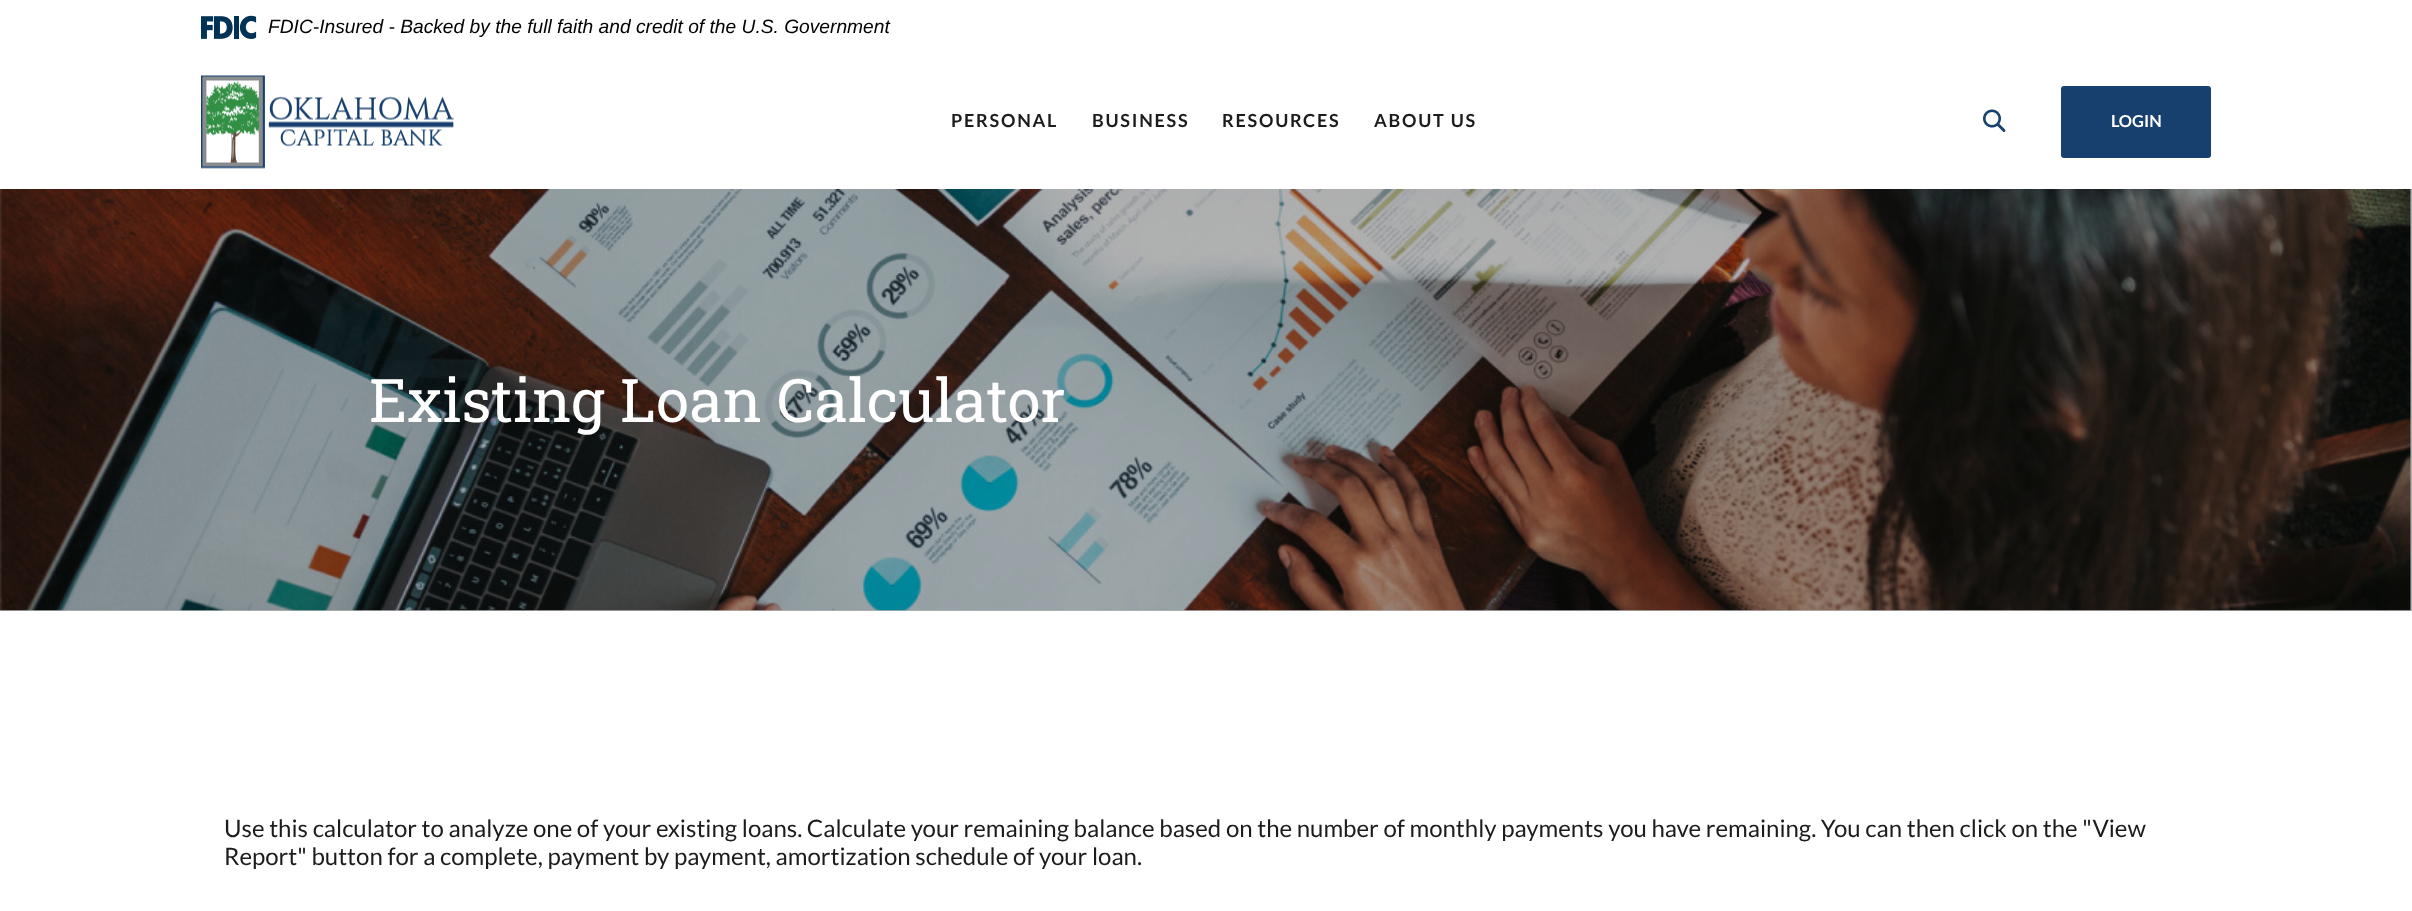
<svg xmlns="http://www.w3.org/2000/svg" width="2412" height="911">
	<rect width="100%" height="100%" fill="#FFFFFF" />
	<rect x="0" y="189" width="2412" height="422" fill="#B3B3B3" />
	<image x="201" y="15" width="56" height="24" href="assets/img1.png" />
	<text x="268" y="33" font-family="Liberation Sans" font-size="19.2" font-style="italic" fill="#000000">FDIC-Insured - Backed by the full faith and credit of the U.S. Government</text>
	<image x="201" y="75" width="253" height="94" href="assets/img2.png" />
	<g font-family="Lato" font-size="18" font-weight="700" letter-spacing="1.75" fill="#1C1C1C">
		<text x="951" y="127">PERSONAL</text>
		<text x="1092" y="127">BUSINESS</text>
		<text x="1222" y="127">RESOURCES</text>
		<text x="1374" y="127">ABOUT US</text>
	</g>
	<image x="1983" y="109" width="23" height="23" href="assets/img3.png" />
	<rect x="2062" y="87" width="148" height="70" rx="2" fill="#17406F" stroke="#17406F" stroke-width="2" />
	<text x="2111" y="127" font-family="Lato" font-size="16.5" font-weight="700" fill="#FFFFFF">LOGIN</text>
	<image x="0" y="189" width="2411" height="422" href="assets/img4.png" />
	<text x="369" y="422" font-family="Roboto Slab" font-size="60" fill="#FFFFFF">Existing Loan Calculator</text>
	<g font-family="Lato" font-size="24" fill="#1C1C1C">
		<text x="224" y="837">Use this calculator to analyze one of your existing loans. Calculate your remaining balance based on the number of monthly payments you have remaining. You can then click on the "View</text>
		<text x="224" y="865">Report" button for a complete, payment by payment, amortization schedule of your loan.</text>
	</g>
</svg>
